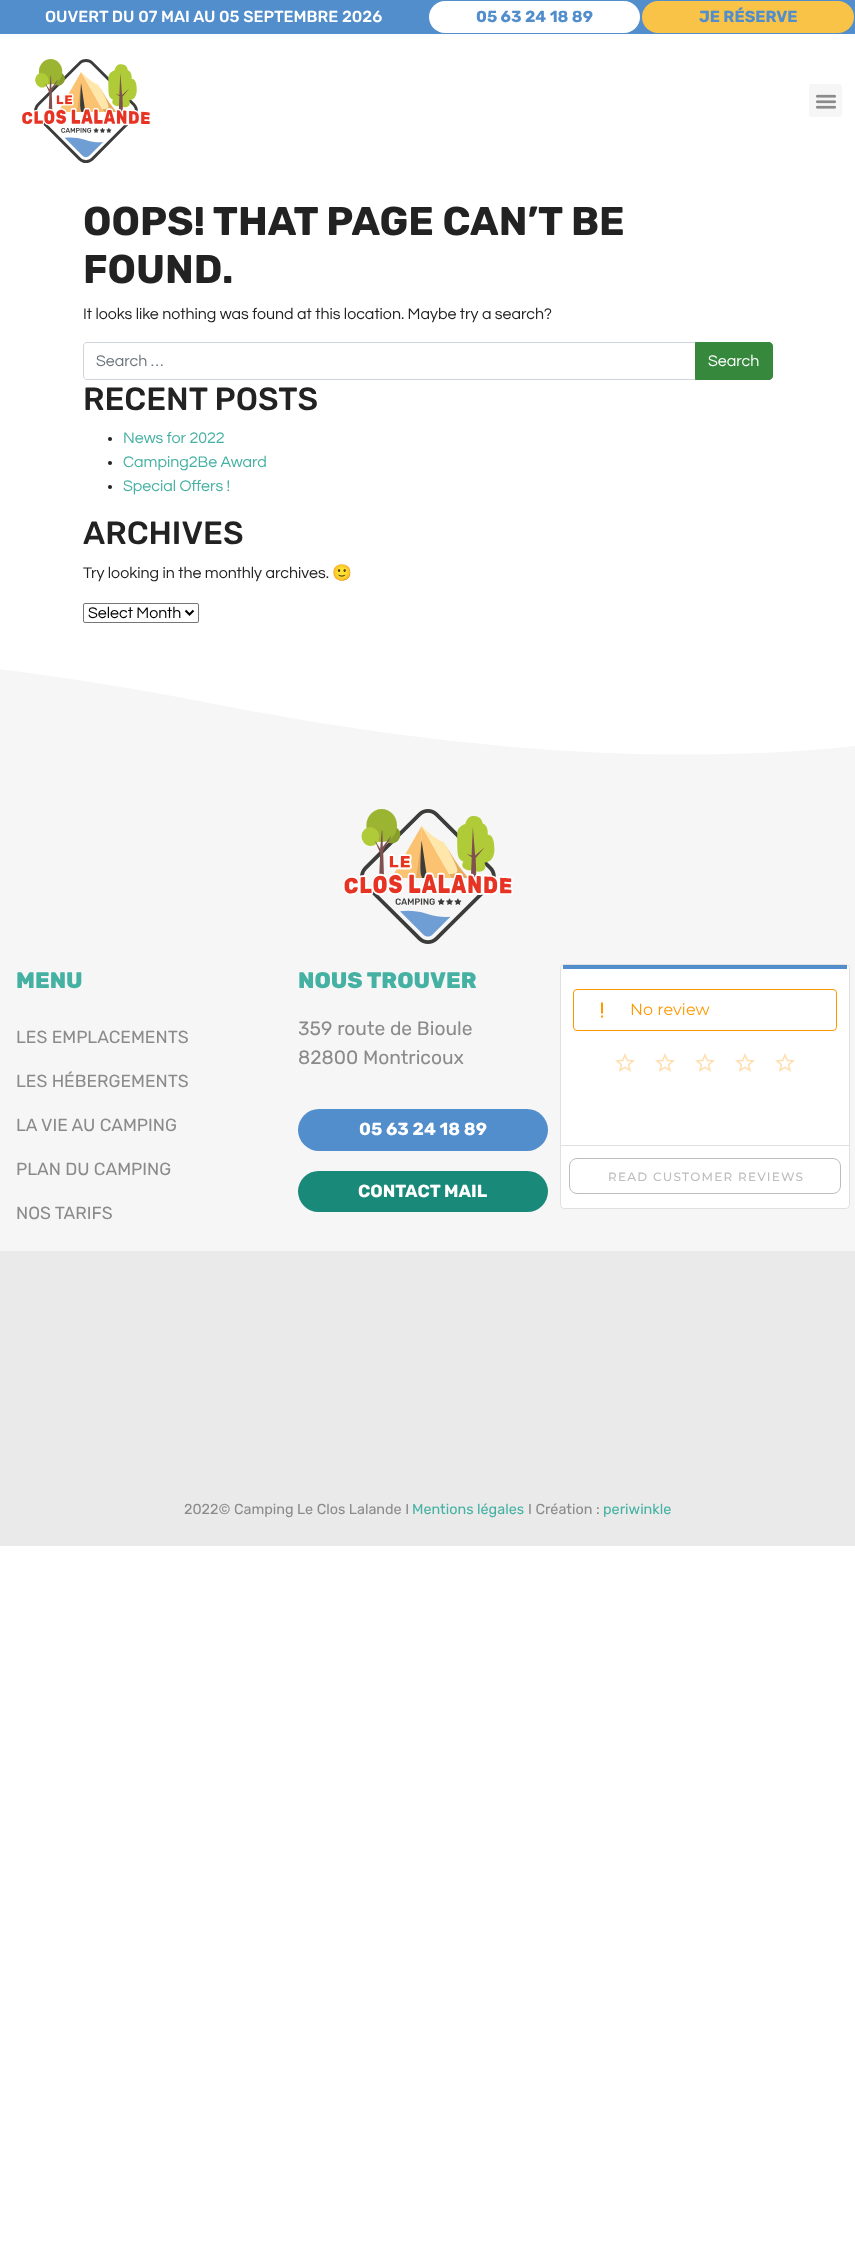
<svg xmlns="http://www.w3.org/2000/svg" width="855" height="2256">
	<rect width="100%" height="100%" fill="#FFFFFF" />
	<rect x="0" y="0" width="855" height="34" fill="#528DCC" />
	<text x="45" y="22" font-family="Rubik" font-size="16" font-weight="500" fill="#FFFFFF">OUVERT DU 07 MAI AU 05 SEPTEMBRE 2026</text>
	<rect x="429" y="1" width="211" height="32" rx="16" fill="#FFFFFF" />
	<text x="476" y="22" font-family="Rubik" font-size="16" font-weight="700" fill="#528DCC">05 63 24 18 89</text>
	<rect x="642" y="1" width="212" height="32" rx="16" fill="#F8C346" />
	<text x="699" y="22" font-family="Rubik" font-size="16" font-weight="700" fill="#528DCC">JE RÉSERVE</text>
	<image x="21" y="59" width="130" height="104" href="assets/img1.png" />
	<rect x="809" y="84" width="33" height="33" rx="3" fill="#F6F6F6" />
	<image x="816" y="94" width="20" height="15" href="assets/img2.png" />
	<g font-family="Rubik" font-size="40" font-weight="700" fill="#222222">
		<text x="83" y="235">OOPS! THAT PAGE CAN’T BE</text>
		<text x="83" y="283">FOUND.</text>
	</g>
	<text x="83" y="319" font-family="Questrial" font-size="16" fill="#222222">It looks like nothing was found at this location. Maybe try a search?</text>
	<path d="M87 342.5H695.5V379.5H87C85 379.5 83.5 378 83.5 376V346C83.5 344 85 342.5 87 342.5Z" fill="none" stroke="#CED4DA" />
	<text x="96" y="366" font-family="Questrial" font-size="16" fill="#6C757D">Search …</text>
	<path d="M695.5 342.5H769C771 342.5 772.5 344 772.5 346V376C772.5 378 771 379.5 769 379.5H695.5Z" fill="#35883C" stroke="#35883C" />
	<text x="708" y="366" font-family="Questrial" font-size="16" fill="#FFFFFF">Search</text>
	<text x="83" y="410" font-family="Rubik" font-size="32" font-weight="500" fill="#222222">RECENT POSTS</text>
	<circle cx="110" cy="439" r="2" fill="#222222" />
	<text x="123" y="443" font-family="Questrial" font-size="16" fill="#45B1A2">News for 2022</text>
	<circle cx="110" cy="463" r="2" fill="#222222" />
	<text x="123" y="467" font-family="Questrial" font-size="16" fill="#45B1A2">Camping2Be Award</text>
	<circle cx="110" cy="487" r="2" fill="#222222" />
	<text x="123" y="491" font-family="Questrial" font-size="16" fill="#45B1A2">Special Offers !</text>
	<text x="83" y="544" font-family="Rubik" font-size="32" font-weight="500" fill="#222222">ARCHIVES</text>
	<text x="83" y="578" font-family="Questrial" font-size="16" fill="#222222">Try looking in the monthly archives.</text>
	<text x="332" y="578" font-family="Noto Color Emoji" font-size="16" fill="#222222">🙂</text>
	<rect x="83.5" y="603.5" width="115" height="19" rx="1.5" fill="none" stroke="#767676" />
	<path d="M185.5 610.5L189.5 614.5L193.5 610.5" fill="none" stroke="#000000" stroke-width="2" />
	<text x="88" y="618" font-family="Questrial" font-size="16" fill="#000000">Select Month</text>
	<path d="M-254 1252H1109V688C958 746 679 796 209 703C15 665-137 652-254 655Z" fill="#F6F6F6" />
	<image x="343" y="809" width="170" height="135" href="assets/img3.png" />
	<text x="16" y="988" font-family="Rubik" font-size="22.5" font-weight="800" fill="#45B1A2">MENU</text>
	<g font-family="Rubik" font-size="17.5" fill="#8C8B8B">
		<text x="16" y="1043">LES EMPLACEMENTS</text>
		<text x="16" y="1087">LES HÉBERGEMENTS</text>
		<text x="16" y="1131">LA VIE AU CAMPING</text>
		<text x="16" y="1175">PLAN DU CAMPING</text>
		<text x="16" y="1219">NOS TARIFS</text>
	</g>
	<text x="298" y="988" font-family="Rubik" font-size="22.5" font-weight="800" fill="#45B1A2">NOUS TROUVER</text>
	<g font-family="Rubik" font-size="19.25" fill="#8C8B8B">
		<text x="298" y="1035">359 route de Bioule</text>
		<text x="298" y="1064">82800 Montricoux</text>
	</g>
	<rect x="298" y="1109" width="250" height="42" rx="21" fill="#528DCC" />
	<text x="359" y="1135" font-family="Rubik" font-size="17.5" font-weight="700" fill="#FFFFFF">05 63 24 18 89</text>
	<rect x="298" y="1171" width="250" height="41" rx="20.5" fill="#19897A" />
	<text x="358" y="1197" font-family="Rubik" font-size="17.5" font-weight="700" fill="#FFFFFF">CONTACT MAIL</text>
	<rect x="560" y="964" width="290" height="245" rx="4" fill="#FFFFFF" />
	<rect x="560.5" y="964.5" width="289" height="244" rx="3.5" fill="none" stroke="#000000" stroke-opacity="0.12" />
	<rect x="563" y="965" width="284" height="4" fill="#528DCC" />
	<rect x="573.5" y="989.5" width="263" height="41" rx="3.5" fill="none" stroke="#FF9800" />
	<image x="601" y="1002" width="2" height="16" href="assets/img4.png" />
	<text x="630" y="1015" font-family="Montserrat" font-size="16" fill="#FF9800">No review</text>
	<image x="615" y="1053" width="20" height="19" href="assets/img5.png" />
	<image x="655" y="1053" width="20" height="19" href="assets/img5.png" />
	<image x="695" y="1053" width="20" height="19" href="assets/img5.png" />
	<image x="735" y="1053" width="20" height="19" href="assets/img5.png" />
	<image x="775" y="1053" width="20" height="19" href="assets/img5.png" />
	<rect x="561" y="1145" width="288" height="1" fill="#E0E0E0" />
	<rect x="569.5" y="1158.5" width="271" height="35" rx="7.5" fill="none" stroke="#BDBDBD" />
	<text x="608" y="1181" font-family="Montserrat" font-size="12" font-weight="500" letter-spacing="1.25" fill="#BDBDBD">READ CUSTOMER REVIEWS</text>
	<rect x="0" y="1251" width="855" height="295" fill="#EAEAEA" />
	<text x="184" y="1514" font-family="Rubik" font-size="14.4" fill="#8C8B8B">2022© Camping Le Clos Lalande I</text>
	<text x="412" y="1514" font-family="Rubik" font-size="14.4" fill="#45B1A2">Mentions légales</text>
	<text x="528" y="1514" font-family="Rubik" font-size="14.4" fill="#8C8B8B">I Création :</text>
	<text x="603" y="1514" font-family="Rubik" font-size="14.4" fill="#45B1A2">periwinkle</text>
</svg>
